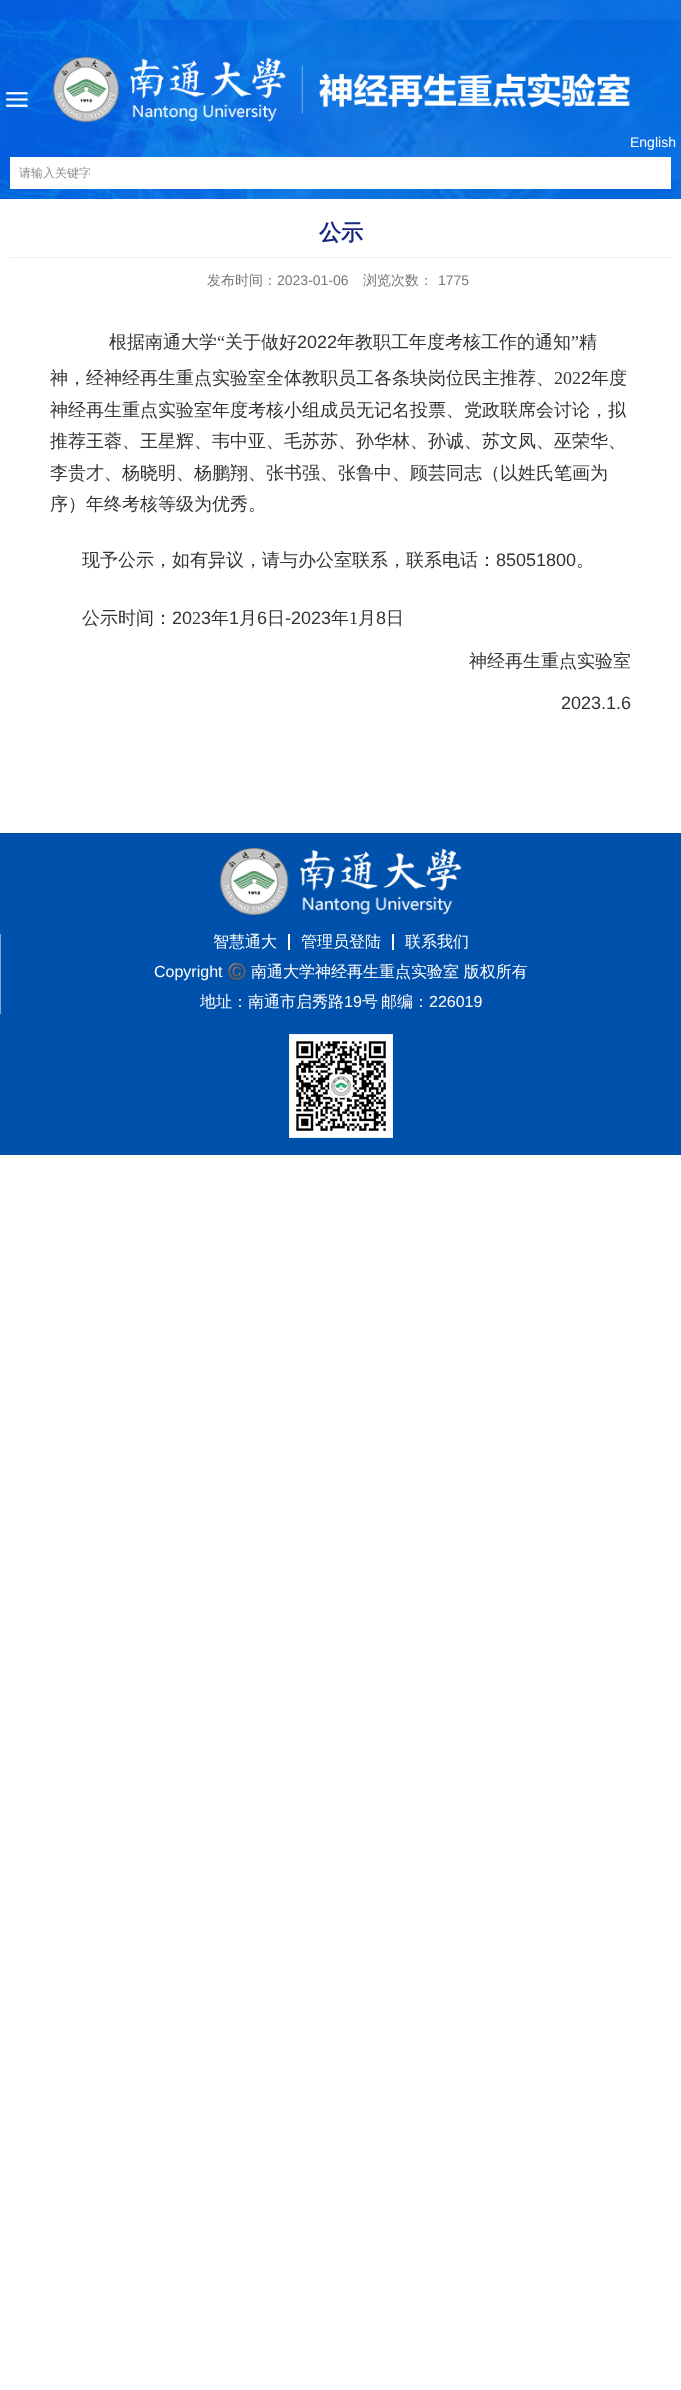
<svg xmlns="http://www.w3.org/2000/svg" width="681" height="2390">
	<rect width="100%" height="100%" fill="#FFFFFF" />
	<image x="0" y="0" width="681" height="199" href="assets/img1.png" />
	<image x="6" y="92" width="22" height="15" href="assets/img2.png" />
	<image x="53" y="57" width="577" height="65" href="assets/img3.png" />
	<text x="630" y="147" font-family="Liberation Sans" font-size="14" fill="#FFFFFF">English</text>
	<rect x="10" y="157" width="661" height="32" fill="#FFFFFF" />
	<text x="19" y="177" font-family="WenQuanYi Zen Hei" font-size="12" font-weight="500" fill="#8D8D8D">请输入关键字</text>
	<text x="319" y="240" font-family="WenQuanYi Zen Hei" font-size="22" font-weight="700" fill="#182880">公示</text>
	<rect x="10" y="257" width="661" height="1" fill="#ECECEC" />
	<text x="207" y="285" font-family="WenQuanYi Zen Hei" font-size="14" font-weight="500" fill="#787878">发布时间：</text>
	<text x="277" y="285" font-family="Liberation Sans" font-size="14" fill="#787878">2023-01-06</text>
	<text x="363" y="285" font-family="WenQuanYi Zen Hei" font-size="14" font-weight="500" fill="#787878">浏览次数：</text>
	<text x="438" y="285" font-family="Liberation Sans" font-size="14" fill="#787878">1775</text>
	<text x="109" y="348" font-family="WenQuanYi Zen Hei" font-size="18" font-weight="500" fill="#333333">根据南通大学</text>
	<text x="217" y="348" font-family="Liberation Serif" font-size="18" fill="#333333">“</text>
	<text x="225" y="348" font-family="WenQuanYi Zen Hei" font-size="18" font-weight="500" fill="#333333">关于做好</text>
	<text x="297" y="348" font-family="Liberation Sans" font-size="18" fill="#333333">2022</text>
	<text x="337" y="348" font-family="WenQuanYi Zen Hei" font-size="18" font-weight="500" fill="#333333">年教职工年度考核工作的通知</text>
	<text x="571" y="348" font-family="Liberation Serif" font-size="18" fill="#333333">”</text>
	<g font-family="WenQuanYi Zen Hei" font-size="18" font-weight="500" fill="#333333">
		<text x="579" y="348">精</text>
		<text x="50" y="384">神，经神经再生重点实验室全体教职员工各条块岗位民主推荐、</text>
	</g>
	<text x="554" y="384" font-family="Liberation Serif" font-size="18" fill="#333333">202</text>
	<text x="581" y="384" font-family="Liberation Sans" font-size="18" fill="#333333">2</text>
	<g font-family="WenQuanYi Zen Hei" font-size="18" font-weight="500" fill="#333333">
		<text x="591" y="384">年度</text>
		<text x="50" y="416">神经再生重点实验室年度考核小组成员无记名投票、党政联席会讨论，拟</text>
		<text x="50" y="447">推荐王蓉、王星辉、韦中亚、毛苏苏、孙华林、孙诚、苏文凤、巫荣华、</text>
		<text x="50" y="479">李贵才、杨晓明、杨鹏翔、张书强、张鲁中、顾芸同志（以姓氏笔画为</text>
		<text x="50" y="510">序）年终考核等级为优秀。</text>
		<text x="82" y="566">现予公示，如有异议，请与办公室联系，联系电话：</text>
	</g>
	<text x="496" y="566" font-family="Liberation Sans" font-size="18" fill="#333333">85051800</text>
	<g font-family="WenQuanYi Zen Hei" font-size="18" font-weight="500" fill="#333333">
		<text x="576" y="566">。</text>
		<text x="82" y="624">公示时间：</text>
	</g>
	<text x="172" y="624" font-family="Liberation Sans" font-size="18" fill="#333333">20</text>
	<text x="192" y="624" font-family="Liberation Serif" font-size="18" fill="#333333">2</text>
	<text x="201" y="624" font-family="Liberation Sans" font-size="18" fill="#333333">3</text>
	<text x="211" y="624" font-family="WenQuanYi Zen Hei" font-size="18" font-weight="500" fill="#333333">年</text>
	<text x="229" y="624" font-family="Liberation Sans" font-size="18" fill="#333333">1</text>
	<text x="239" y="624" font-family="WenQuanYi Zen Hei" font-size="18" font-weight="500" fill="#333333">月</text>
	<text x="257" y="624" font-family="Liberation Sans" font-size="18" fill="#333333">6</text>
	<text x="267" y="624" font-family="WenQuanYi Zen Hei" font-size="18" font-weight="500" fill="#333333">日</text>
	<text x="285" y="624" font-family="Liberation Sans" font-size="18" fill="#333333">-2023</text>
	<text x="331" y="624" font-family="WenQuanYi Zen Hei" font-size="18" font-weight="500" fill="#333333">年</text>
	<text x="349" y="624" font-family="Liberation Serif" font-size="18" fill="#333333">1</text>
	<text x="358" y="624" font-family="WenQuanYi Zen Hei" font-size="18" font-weight="500" fill="#333333">月</text>
	<text x="376" y="624" font-family="Liberation Sans" font-size="18" fill="#333333">8</text>
	<g font-family="WenQuanYi Zen Hei" font-size="18" font-weight="500" fill="#333333">
		<text x="386" y="624">日</text>
		<text x="469" y="667">神经再生重点实验室</text>
	</g>
	<text x="561" y="709" font-family="Liberation Sans" font-size="18" fill="#333333">2023.1.6</text>
	<rect x="0" y="833" width="681" height="322" fill="#0051AC" />
	<image x="219" y="848" width="243" height="67" href="assets/img4.png" />
	<rect x="0" y="934" width="1" height="80" fill="#80A8D6" />
	<text x="213" y="947" font-family="WenQuanYi Zen Hei" font-size="16" font-weight="500" fill="#FFFFFF">智慧通大</text>
	<rect x="288" y="934" width="2" height="16" fill="#FFFFFF" />
	<text x="301" y="947" font-family="WenQuanYi Zen Hei" font-size="16" font-weight="500" fill="#FFFFFF">管理员登陆</text>
	<rect x="392" y="934" width="2" height="16" fill="#FFFFFF" />
	<text x="405" y="947" font-family="WenQuanYi Zen Hei" font-size="16" font-weight="500" fill="#FFFFFF">联系我们</text>
	<text x="154" y="977" font-family="Liberation Sans" font-size="16" fill="#FFFFFF">Copyright</text>
	<text x="227" y="977" font-family="Noto Color Emoji" font-size="16" fill="#FFFFFF">©️</text>
	<g font-family="WenQuanYi Zen Hei" font-size="16" font-weight="500" fill="#FFFFFF">
		<text x="251" y="977">南通大学神经再生重点实验室 版权所有</text>
		<text x="200" y="1007">地址：南通市启秀路</text>
	</g>
	<text x="344" y="1007" font-family="Liberation Sans" font-size="16" fill="#FFFFFF">19</text>
	<g font-family="WenQuanYi Zen Hei" font-size="16" font-weight="500" fill="#FFFFFF">
		<text x="362" y="1007">号</text>
		<text x="381" y="1007">邮编：</text>
	</g>
	<text x="429" y="1007" font-family="Liberation Sans" font-size="16" fill="#FFFFFF">226019</text>
	<image x="289" y="1034" width="104" height="104" href="assets/img5.png" />
</svg>
